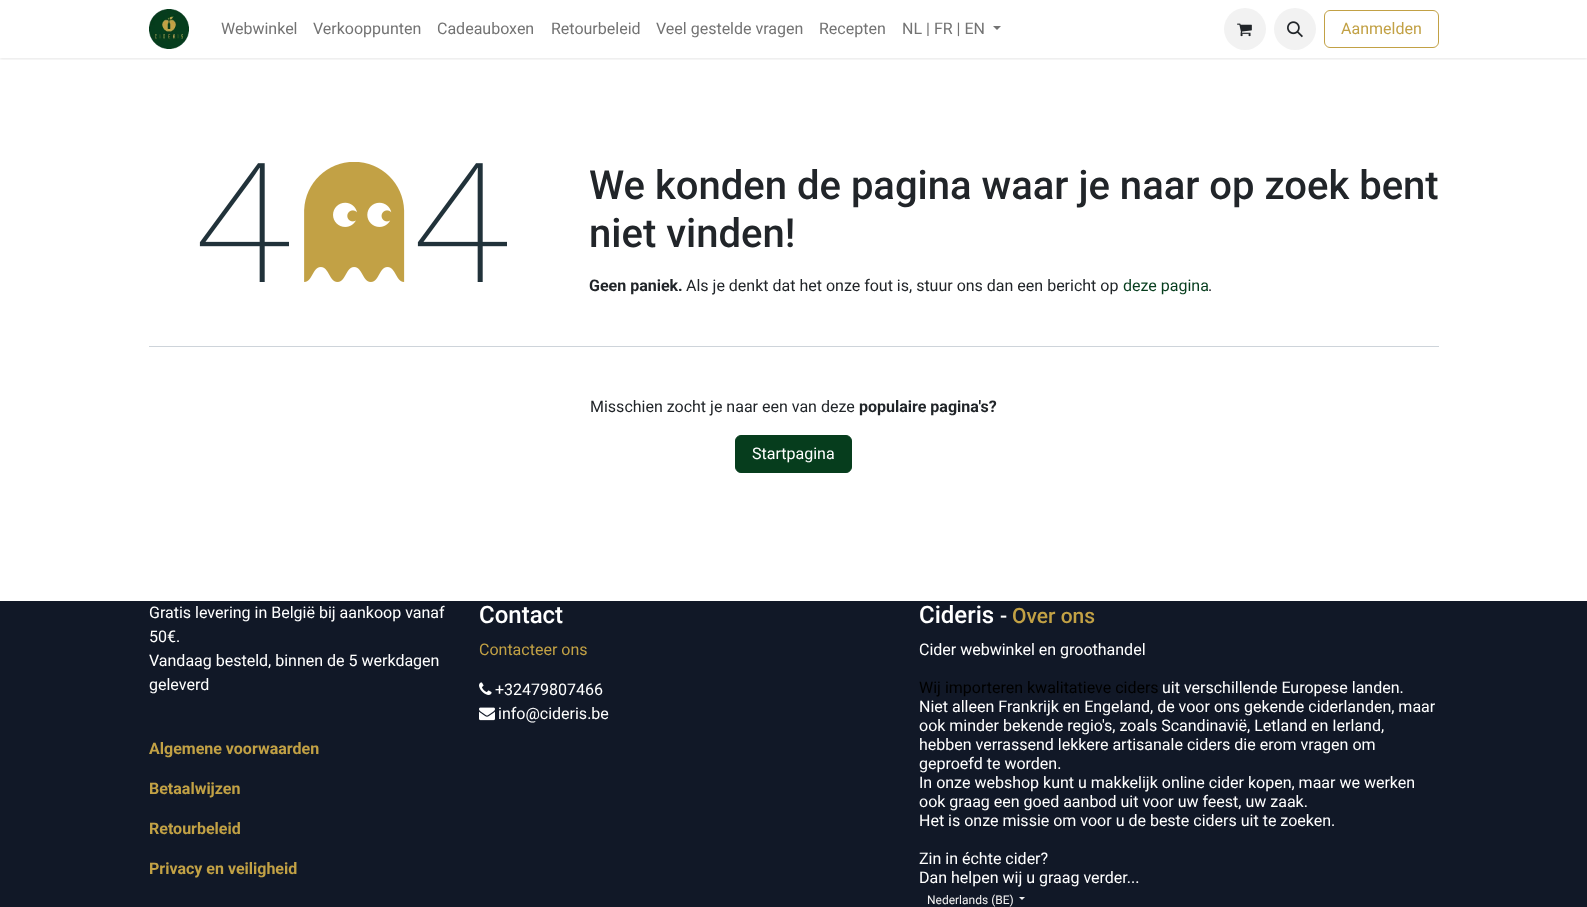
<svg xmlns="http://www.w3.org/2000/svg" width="1587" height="907">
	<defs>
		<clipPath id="clip1"><rect x="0" y="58" width="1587" height="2" /></clipPath>
	</defs>
	<rect width="100%" height="100%" fill="#FFFFFF" />
	<g clip-path="url(#clip1)">
		<rect x="0" y="1" width="1587" height="58" fill="#000000" fill-opacity="0.1" filter="blur(1.5px)" />
	</g>
	<image x="149" y="9" width="40" height="40" href="assets/img1.png" />
	<g font-family="Roboto" font-size="16" fill="#737373">
		<text x="221" y="34">Webwinkel</text>
		<text x="313" y="34">Verkooppunten</text>
		<text x="437" y="34">Cadeauboxen</text>
		<text x="551" y="34">Retourbeleid</text>
		<text x="656" y="34">Veel gestelde vragen</text>
		<text x="819" y="34">Recepten</text>
		<text x="902" y="34">NL | FR | EN</text>
	</g>
	<path d="M993 26H1001L997 30Z" fill="#737373" />
	<circle cx="1245" cy="29" r="21" fill="#F2F2F2" />
	<image x="1237" y="23" width="15" height="14" href="assets/img2.png" />
	<circle cx="1295" cy="29" r="21" fill="#F2F2F2" />
	<image x="1287" y="21" width="16" height="17" href="assets/img3.png" />
	<rect x="1324.5" y="10.5" width="114" height="37" rx="5.5" fill="none" stroke="#C2A145" />
	<text x="1341" y="34" font-family="Roboto" font-size="16" fill="#C2A145">Aanmelden</text>
	<image x="199" y="162" width="308" height="120" href="assets/img4.png" />
	<g font-family="Roboto" font-size="40" font-weight="500" fill="#212529">
		<text x="589" y="199">We konden de pagina waar je naar op zoek bent</text>
		<text x="589" y="247">niet vinden!</text>
	</g>
	<text x="589" y="291" font-family="Roboto" font-size="16" font-weight="700" fill="#212529">Geen paniek.</text>
	<text x="686" y="291" font-family="Roboto" font-size="16" fill="#212529">Als je denkt dat het onze fout is, stuur ons dan een bericht op</text>
	<text x="1123" y="291" font-family="Roboto" font-size="16" fill="#063D1D">deze pagina</text>
	<text x="1208" y="291" font-family="Roboto" font-size="16" fill="#212529">.</text>
	<rect x="149" y="346" width="1290" height="1" fill="#CED4DA" />
	<text x="590" y="412" font-family="Roboto" font-size="16" fill="#212529">Misschien zocht je naar een van deze</text>
	<text x="859" y="412" font-family="Roboto" font-size="16" font-weight="700" fill="#212529">populaire pagina's?</text>
	<rect x="735.5" y="435.5" width="116" height="37" rx="5.5" fill="#063D1D" stroke="#063D1D" />
	<text x="752" y="459" font-family="Roboto" font-size="16" fill="#FFFFFF">Startpagina</text>
	<rect x="0" y="601" width="1587" height="306" fill="#111827" />
	<g font-family="Roboto" font-size="16" fill="#FFFFFF">
		<text x="149" y="618">Gratis levering in België bij aankoop vanaf</text>
		<text x="149" y="642">50€.</text>
		<text x="149" y="666">Vandaag besteld, binnen de 5 werkdagen</text>
		<text x="149" y="690">geleverd</text>
	</g>
	<g font-family="Roboto" font-size="16" font-weight="700" fill="#C2A145">
		<text x="149" y="754">Algemene voorwaarden</text>
		<text x="149" y="794">Betaalwijzen</text>
		<text x="149" y="834">Retourbeleid</text>
		<text x="149" y="874">Privacy en veiligheid</text>
	</g>
	<text x="479" y="623" font-family="Roboto" font-size="24" font-weight="500" fill="#FFFFFF">Contact</text>
	<text x="479" y="655" font-family="Roboto" font-size="16" fill="#C2A145">Contacteer ons</text>
	<image x="479" y="682" width="13" height="13" href="assets/img5.png" />
	<text x="495" y="695" font-family="Roboto" font-size="16" fill="#FFFFFF">+32479807466</text>
	<image x="479" y="707" width="16" height="14" href="assets/img6.png" />
	<text x="498" y="719" font-family="Roboto" font-size="16" fill="#FFFFFF">info@cideris.be</text>
	<text x="919" y="623" font-family="Roboto" font-size="24" font-weight="500" fill="#FFFFFF">Cideris</text>
	<text x="1000" y="623" font-family="Roboto" font-size="21" font-weight="500" fill="#FFFFFF">-</text>
	<text x="1012" y="623" font-family="Roboto" font-size="21" font-weight="500" fill="#C2A145">Over ons</text>
	<text x="919" y="655" font-family="Roboto" font-size="16" fill="#FFFFFF">Cider webwinkel en groothandel</text>
	<text x="919" y="693" font-family="Roboto" font-size="16" fill="#000000">Wij importeren kwalitatieve ciders</text>
	<g font-family="Roboto" font-size="16" fill="#FFFFFF">
		<text x="1162" y="693">uit verschillende Europese landen.</text>
		<text x="919" y="712">Niet alleen Frankrijk en Engeland, de voor ons gekende ciderlanden, maar</text>
		<text x="919" y="731">ook minder bekende regio's, zoals Scandinavië, Letland en Ierland,</text>
		<text x="919" y="750">hebben verrassend lekkere artisanale ciders die erom vragen om</text>
		<text x="919" y="769">geproefd te worden.</text>
		<text x="919" y="788">In onze webshop kunt u makkelijk online cider kopen, maar we werken</text>
		<text x="919" y="807">ook graag een goed aanbod uit voor uw feest, uw zaak.</text>
		<text x="919" y="826">Het is onze missie om voor u de beste ciders uit te zoeken.</text>
		<text x="919" y="864">Zin in échte cider?</text>
		<text x="919" y="883">Dan helpen wij u graag verder...</text>
	</g>
	<text x="927" y="904" font-family="Roboto" font-size="12" fill="#F3F2F2">Nederlands (BE)</text>
	<path d="M1019 897H1025L1022 900Z" fill="#F3F2F2" />
</svg>
